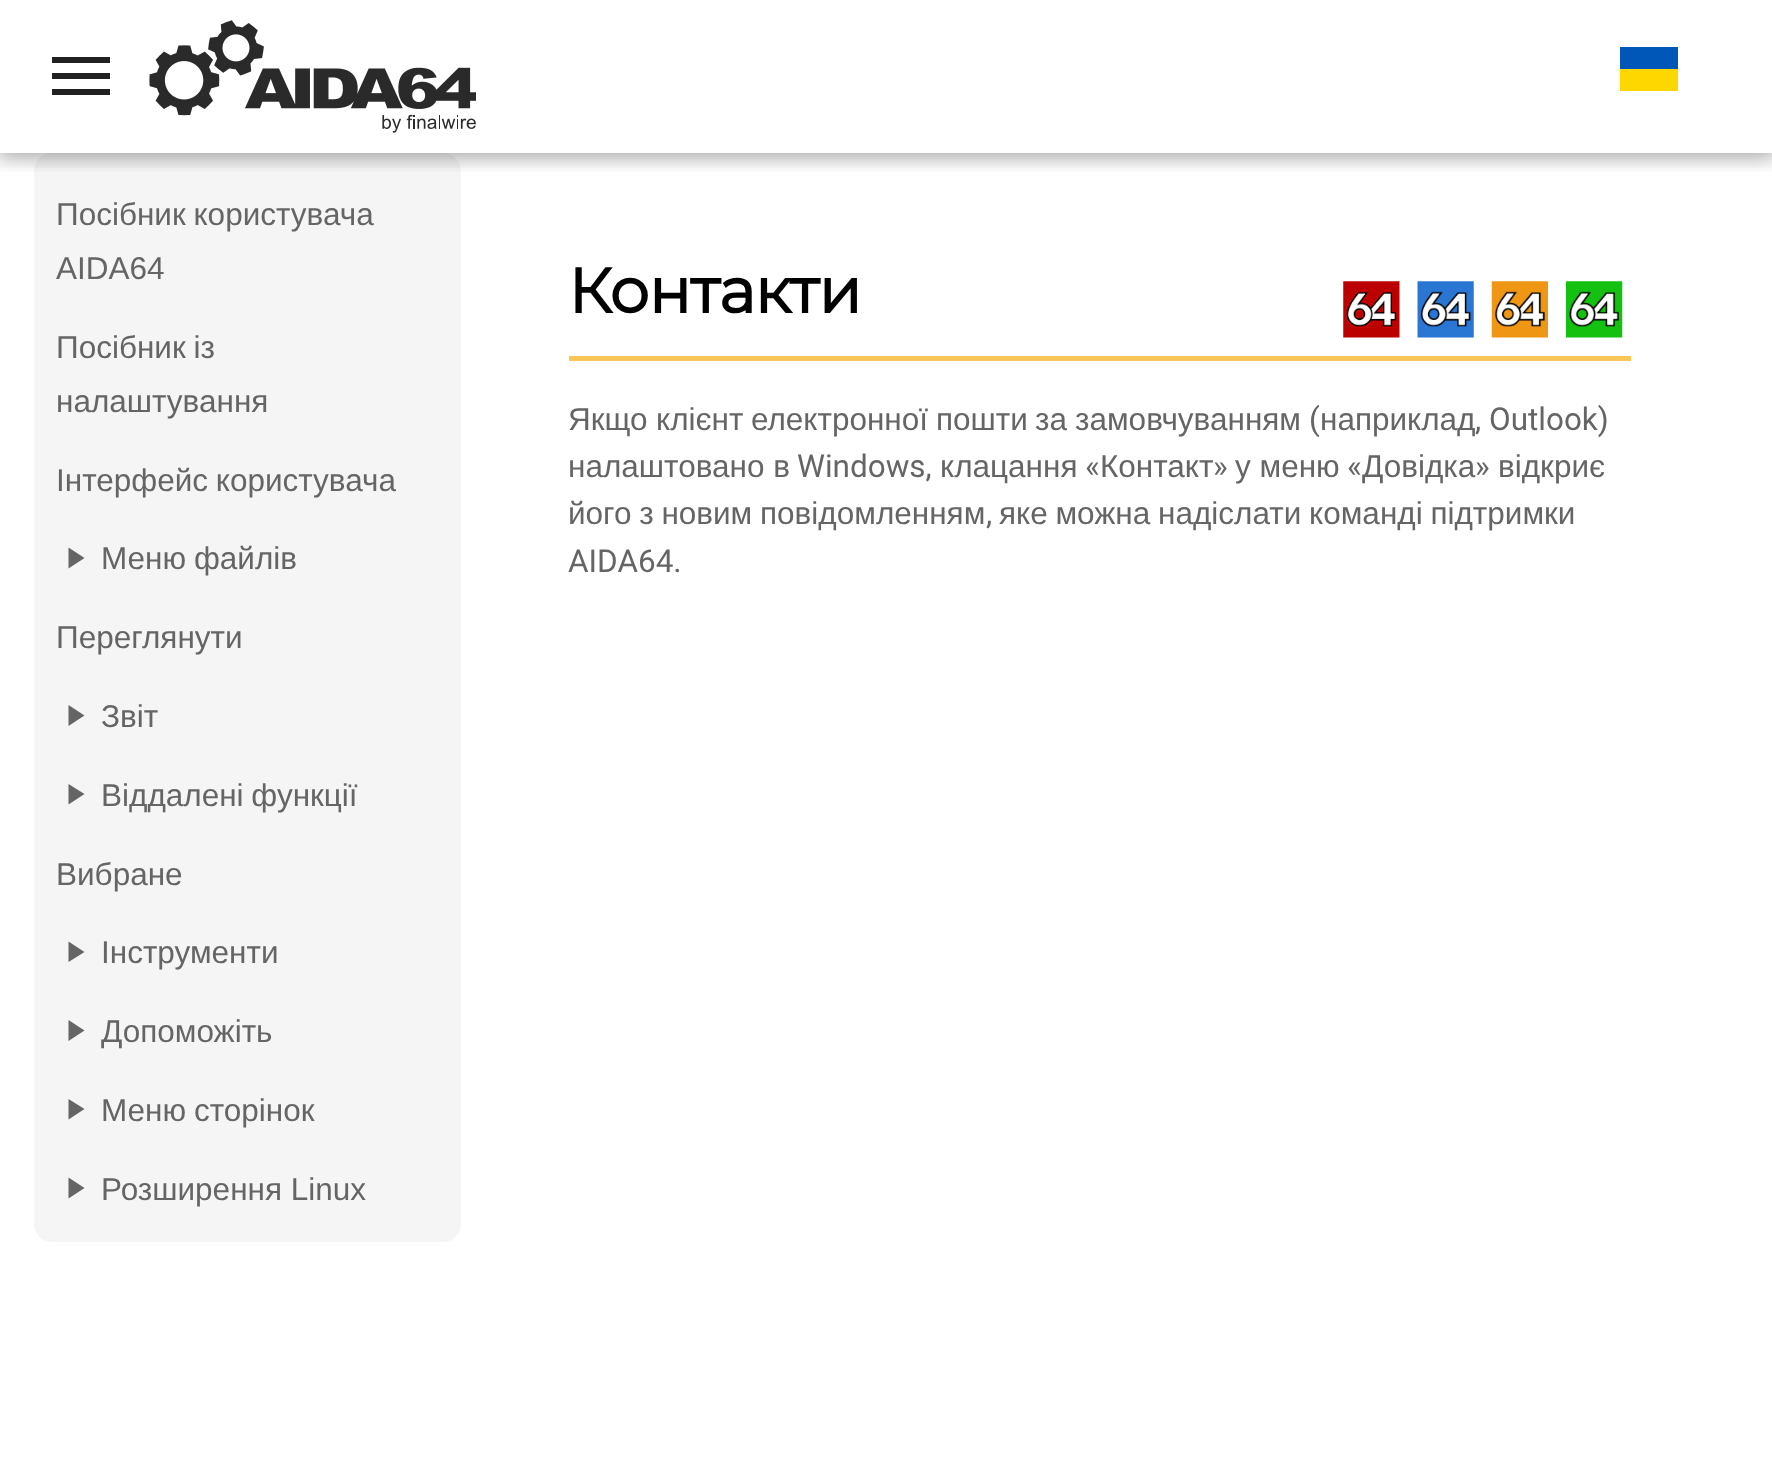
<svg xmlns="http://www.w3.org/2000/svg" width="1772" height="1476">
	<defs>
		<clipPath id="clip1"><rect x="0" y="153" width="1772" height="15" /></clipPath>
		<clipPath id="clip2"><rect x="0" y="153" width="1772" height="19" /></clipPath>
	</defs>
	<rect width="100%" height="100%" fill="#FFFFFF" />
	<path d="M52 57H110V63H52ZM52 79V73H110V79ZM52 95V89H110V95Z" fill="#212121" />
	<image x="149" y="20" width="327" height="113" href="assets/img1.png" />
	<rect x="1620" y="47" width="58" height="22" fill="#0057B8" />
	<rect x="1620" y="69" width="58" height="22" fill="#FFD700" />
	<rect x="34" y="153" width="427" height="1089" rx="18" fill="#F5F5F5" />
	<g clip-path="url(#clip1)">
		<rect x="0" y="0" width="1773" height="153" fill="#000000" fill-opacity="0.24" filter="blur(11px)" />
	</g>
	<g clip-path="url(#clip2)">
		<rect x="-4" y="-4" width="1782" height="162" fill="#000000" fill-opacity="0.2" filter="blur(11px)" />
	</g>
	<g font-family="Liberation Sans" font-size="31.5" fill="#656565">
		<text x="56" y="225" word-spacing="-1">Посібник користувача</text>
		<text x="56" y="279">AIDA64</text>
		<text x="56" y="358" word-spacing="-1">Посібник із</text>
		<text x="56" y="412">налаштування</text>
		<text x="56" y="491" word-spacing="-1">Інтерфейс користувача</text>
	</g>
	<path d="M68.5 547.5L84.5 558L68.5 568.5Z" fill="#656565" />
	<g font-family="Liberation Sans" font-size="31.5" fill="#656565">
		<text x="101" y="569" word-spacing="-1">Меню файлів</text>
		<text x="56" y="648">Переглянути</text>
	</g>
	<path d="M68.5 705L84.5 715.5L68.5 726Z" fill="#656565" />
	<text x="101" y="727" font-family="Liberation Sans" font-size="31.5" fill="#656565">Звіт</text>
	<path d="M68.5 784L84.5 794L68.5 804.5Z" fill="#656565" />
	<g font-family="Liberation Sans" font-size="31.5" fill="#656565">
		<text x="101" y="806" word-spacing="-1">Віддалені функції</text>
		<text x="56" y="885">Вибране</text>
	</g>
	<path d="M68.5 941.5L84.5 952L68.5 962Z" fill="#656565" />
	<text x="101" y="963" font-family="Liberation Sans" font-size="31.5" fill="#656565">Інструменти</text>
	<path d="M68.5 1020L84.5 1030.5L68.5 1041Z" fill="#656565" />
	<text x="101" y="1042" font-family="Liberation Sans" font-size="31.5" fill="#656565">Допоможіть</text>
	<path d="M68.5 1099L84.5 1109L68.5 1119.5Z" fill="#656565" />
	<text x="101" y="1121" word-spacing="-1" font-family="Liberation Sans" font-size="31.5" fill="#656565">Меню сторінок</text>
	<path d="M68.5 1177.5L84.5 1188L68.5 1198.5Z" fill="#656565" />
	<text x="101" y="1200" font-family="Liberation Sans" font-size="31.5" fill="#656565">Розширення Linux</text>
	<text x="568" y="313" font-family="Montserrat" font-size="63" font-weight="700" letter-spacing="-1" fill="#000000">Контакти</text>
	<image x="1343" y="281" width="57" height="57" href="assets/img2.png" />
	<image x="1417" y="281" width="57" height="57" href="assets/img3.png" />
	<image x="1491" y="281" width="57" height="57" href="assets/img4.png" />
	<image x="1566" y="281" width="57" height="57" href="assets/img5.png" />
	<rect x="569" y="356" width="1062" height="5" fill="#F8C758" />
	<g font-family="Liberation Sans" font-size="31.5" fill="#656565">
		<text x="568" y="430">Якщо</text>
		<text x="656" y="430">клієнт</text>
		<text x="751" y="430">електронної</text>
		<text x="936" y="430">пошти</text>
		<text x="1035" y="430">за</text>
		<text x="1075" y="430">замовчуванням</text>
	</g>
	<text x="1309" y="430" font-family="Roboto" font-size="31.5" fill="#656565">(</text>
	<text x="1320" y="430" font-family="Liberation Sans" font-size="31.5" fill="#656565">наприклад</text>
	<text x="1475" y="430" font-family="Roboto" font-size="31.5" fill="#656565">, Outlook)</text>
	<text x="568" y="477" font-family="Liberation Sans" font-size="31.5" fill="#656565">налаштовано в</text>
	<text x="797" y="477" font-family="Roboto" font-size="31.5" fill="#656565">Windows,</text>
	<text x="940" y="477" font-family="Liberation Sans" font-size="31.5" fill="#656565">клацання</text>
	<text x="1085" y="477" font-family="Roboto" font-size="31.5" fill="#656565">«</text>
	<text x="1100" y="477" font-family="Liberation Sans" font-size="31.5" fill="#656565">Контакт</text>
	<text x="1213" y="477" font-family="Roboto" font-size="31.5" fill="#656565">»</text>
	<text x="1235" y="477" font-family="Liberation Sans" font-size="31.5" fill="#656565">у меню</text>
	<text x="1347" y="477" font-family="Roboto" font-size="31.5" fill="#656565">«</text>
	<text x="1362" y="477" font-family="Liberation Sans" font-size="31.5" fill="#656565">Довідка</text>
	<text x="1475" y="477" font-family="Roboto" font-size="31.5" fill="#656565">»</text>
	<g font-family="Liberation Sans" font-size="31.5" fill="#656565">
		<text x="1498" y="477">відкриє</text>
		<text x="568" y="524" word-spacing="-1">його з новим повідомленням</text>
	</g>
	<text x="986" y="524" font-family="Roboto" font-size="31.5" fill="#656565">,</text>
	<text x="999" y="524" word-spacing="-1" font-family="Liberation Sans" font-size="31.5" fill="#656565">яке можна надіслати команді підтримки</text>
	<text x="568" y="572" font-family="Roboto" font-size="31.5" fill="#656565">AIDA64.</text>
</svg>
